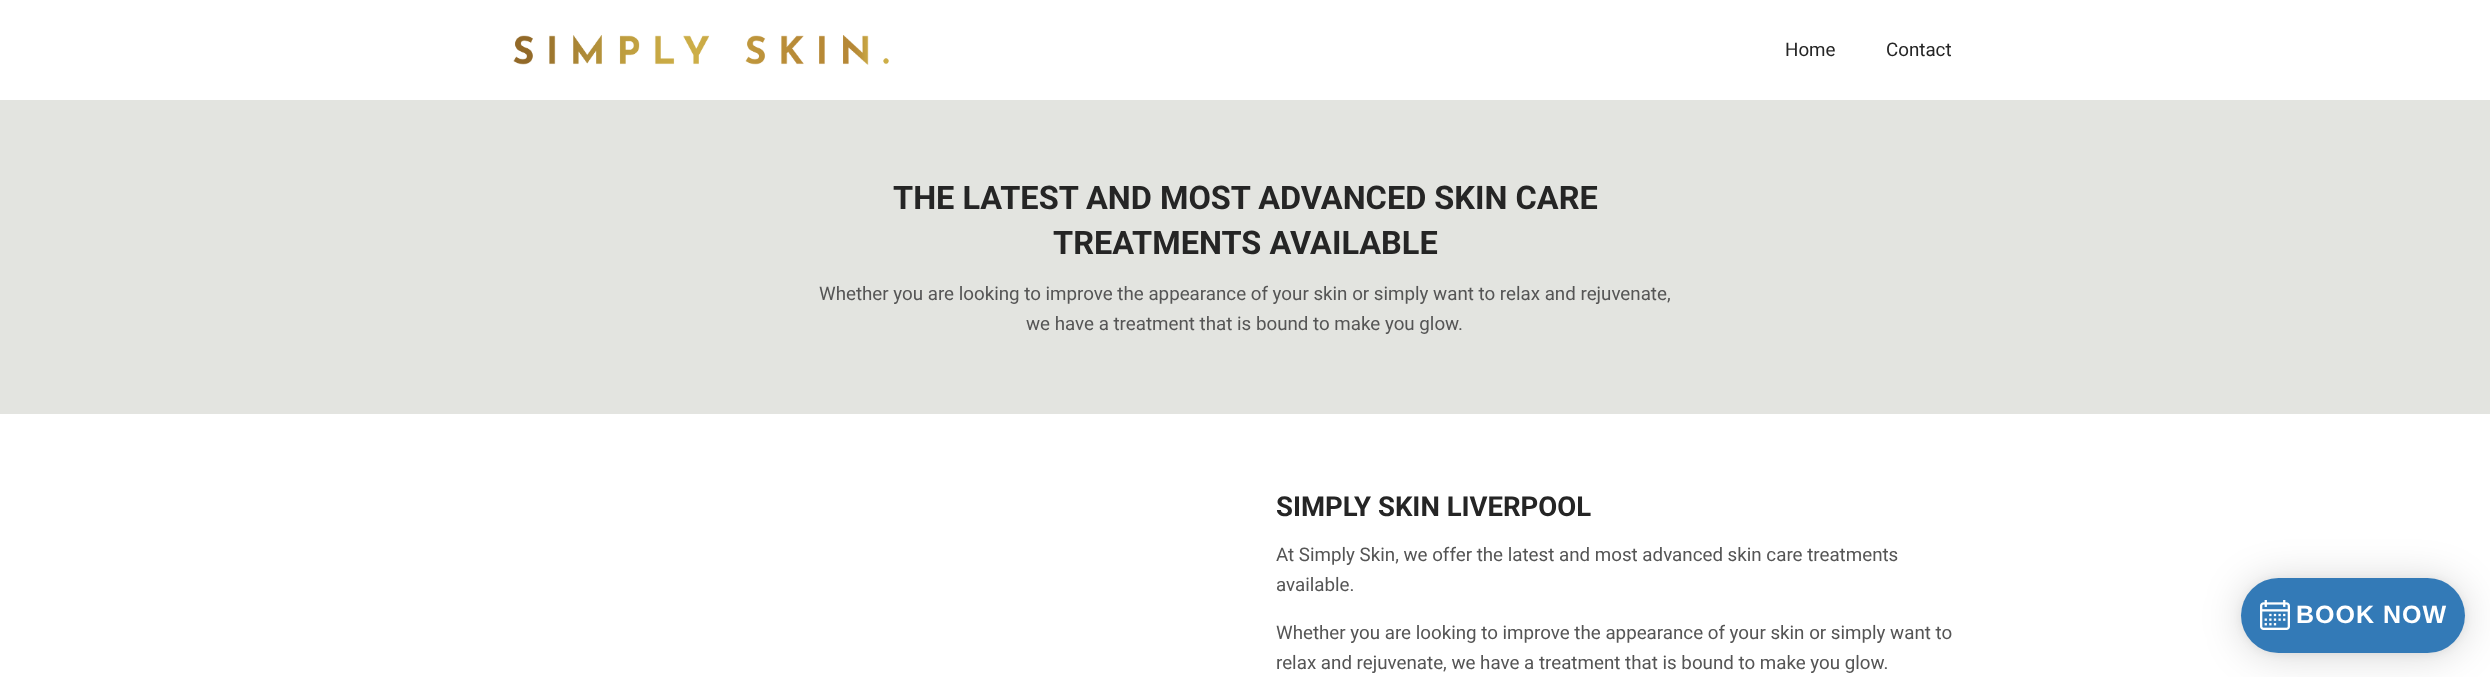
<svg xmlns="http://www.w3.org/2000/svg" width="2490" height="677">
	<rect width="100%" height="100%" fill="#FFFFFF" />
	<image x="513" y="35" width="376" height="30" href="assets/img1.png" />
	<g font-family="Roboto" font-size="18.75" fill="#252525">
		<text x="1785" y="56">Home</text>
		<text x="1886" y="56">Contact</text>
	</g>
	<rect x="0" y="100" width="2490" height="314" fill="#E3E4E0" />
	<g font-family="Roboto" font-size="32.5" font-weight="700" fill="#252525">
		<text x="893" y="209">THE LATEST AND MOST ADVANCED SKIN CARE</text>
		<text x="1053" y="254">TREATMENTS AVAILABLE</text>
	</g>
	<g font-family="Roboto" font-size="18.75" fill="#555555">
		<text x="819" y="300">Whether you are looking to improve the appearance of your skin or simply want to relax and rejuvenate,</text>
		<text x="1026" y="330">we have a treatment that is bound to make you glow.</text>
	</g>
	<text x="1276" y="516" font-family="Roboto" font-size="27.5" font-weight="700" fill="#252525">SIMPLY SKIN LIVERPOOL</text>
	<g font-family="Roboto" font-size="18.75" fill="#555555">
		<text x="1276" y="561">At Simply Skin, we offer the latest and most advanced skin care treatments</text>
		<text x="1276" y="591">available.</text>
		<text x="1276" y="639">Whether you are looking to improve the appearance of your skin or simply want to</text>
		<text x="1276" y="669">relax and rejuvenate, we have a treatment that is bound to make you glow.</text>
	</g>
	<rect x="2241" y="580" width="224" height="75" rx="37.5" fill="#000000" fill-opacity="0.16" filter="blur(20px)" />
	<rect x="2241" y="579" width="224" height="75" rx="37.5" fill="#000000" fill-opacity="0.06" filter="blur(4px)" />
	<rect x="2241" y="578" width="224" height="75" rx="37.5" fill="#337AB7" />
	<image x="2260" y="600" width="30" height="30" href="assets/img2.png" />
	<text x="2296" y="623" font-family="Liberation Sans" font-size="25" font-weight="700" letter-spacing="1" fill="#FFFFFF">BOOK NOW</text>
</svg>
